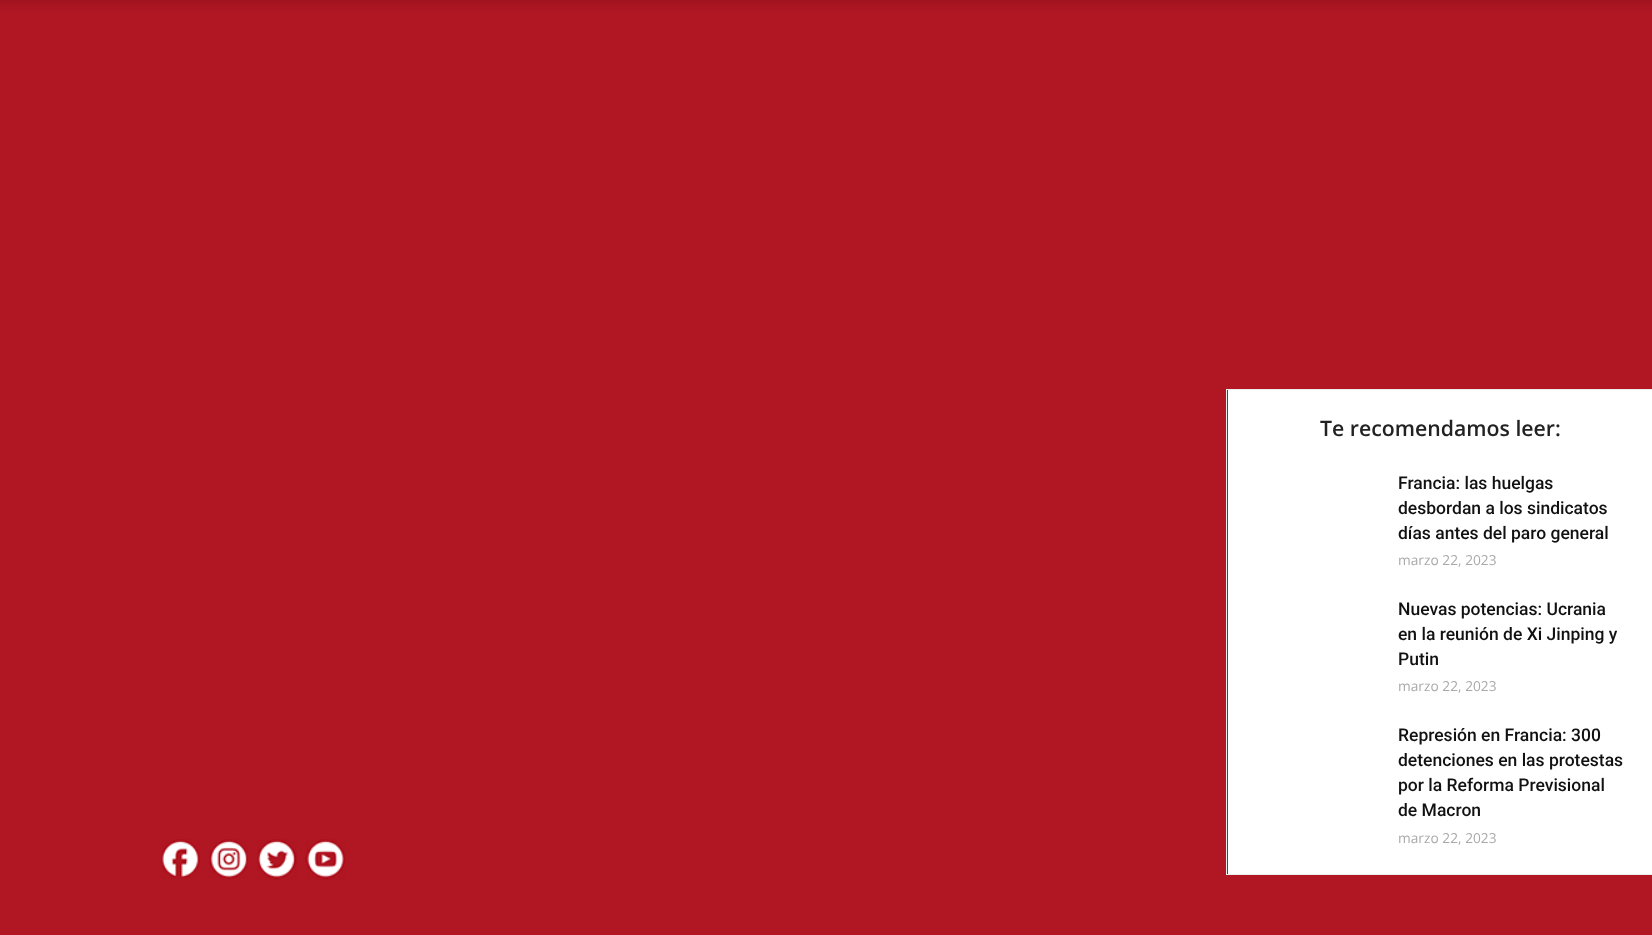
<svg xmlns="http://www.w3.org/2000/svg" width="1652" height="935">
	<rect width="100%" height="100%" fill="#B11623" />
	<image x="0" y="0" width="1652" height="11" href="assets/img1.png" />
	<image x="161" y="839" width="39" height="40" href="assets/img2.png" />
	<image x="209" y="839" width="39" height="40" href="assets/img3.png" />
	<image x="257" y="839" width="40" height="41" href="assets/img4.png" />
	<image x="305" y="839" width="41" height="41" href="assets/img5.png" />
	<rect x="1228" y="390" width="424" height="484" fill="#FFFFFF" />
	<rect x="1226" y="389" width="426" height="1" fill="#EDEDED" />
	<rect x="1226" y="874" width="426" height="1" fill="#EDEDED" />
	<rect x="1226" y="389" width="1" height="486" fill="#EDEDED" />
	<text x="1320" y="436" font-family="Open Sans" font-size="21.25" font-weight="600" fill="#222222">Te recomendamos leer:</text>
	<g font-family="Roboto" font-size="17.5" font-weight="500" fill="#111111">
		<text x="1398" y="489">Francia: las huelgas</text>
		<text x="1398" y="514">desbordan a los sindicatos</text>
		<text x="1398" y="539">días antes del paro general</text>
	</g>
	<text x="1398" y="565" font-family="Open Sans" font-size="13.75" fill="#AAAAAA">marzo 22, 2023</text>
	<g font-family="Roboto" font-size="17.5" font-weight="500" fill="#111111">
		<text x="1398" y="615">Nuevas potencias: Ucrania</text>
		<text x="1398" y="640">en la reunión de Xi Jinping y</text>
		<text x="1398" y="665">Putin</text>
	</g>
	<text x="1398" y="691" font-family="Open Sans" font-size="13.75" fill="#AAAAAA">marzo 22, 2023</text>
	<g font-family="Roboto" font-size="17.5" font-weight="500" fill="#111111">
		<text x="1398" y="741">Represión en Francia: 300</text>
		<text x="1398" y="766">detenciones en las protestas</text>
		<text x="1398" y="791">por la Reforma Previsional</text>
		<text x="1398" y="816">de Macron</text>
	</g>
	<text x="1398" y="843" font-family="Open Sans" font-size="13.75" fill="#AAAAAA">marzo 22, 2023</text>
</svg>
